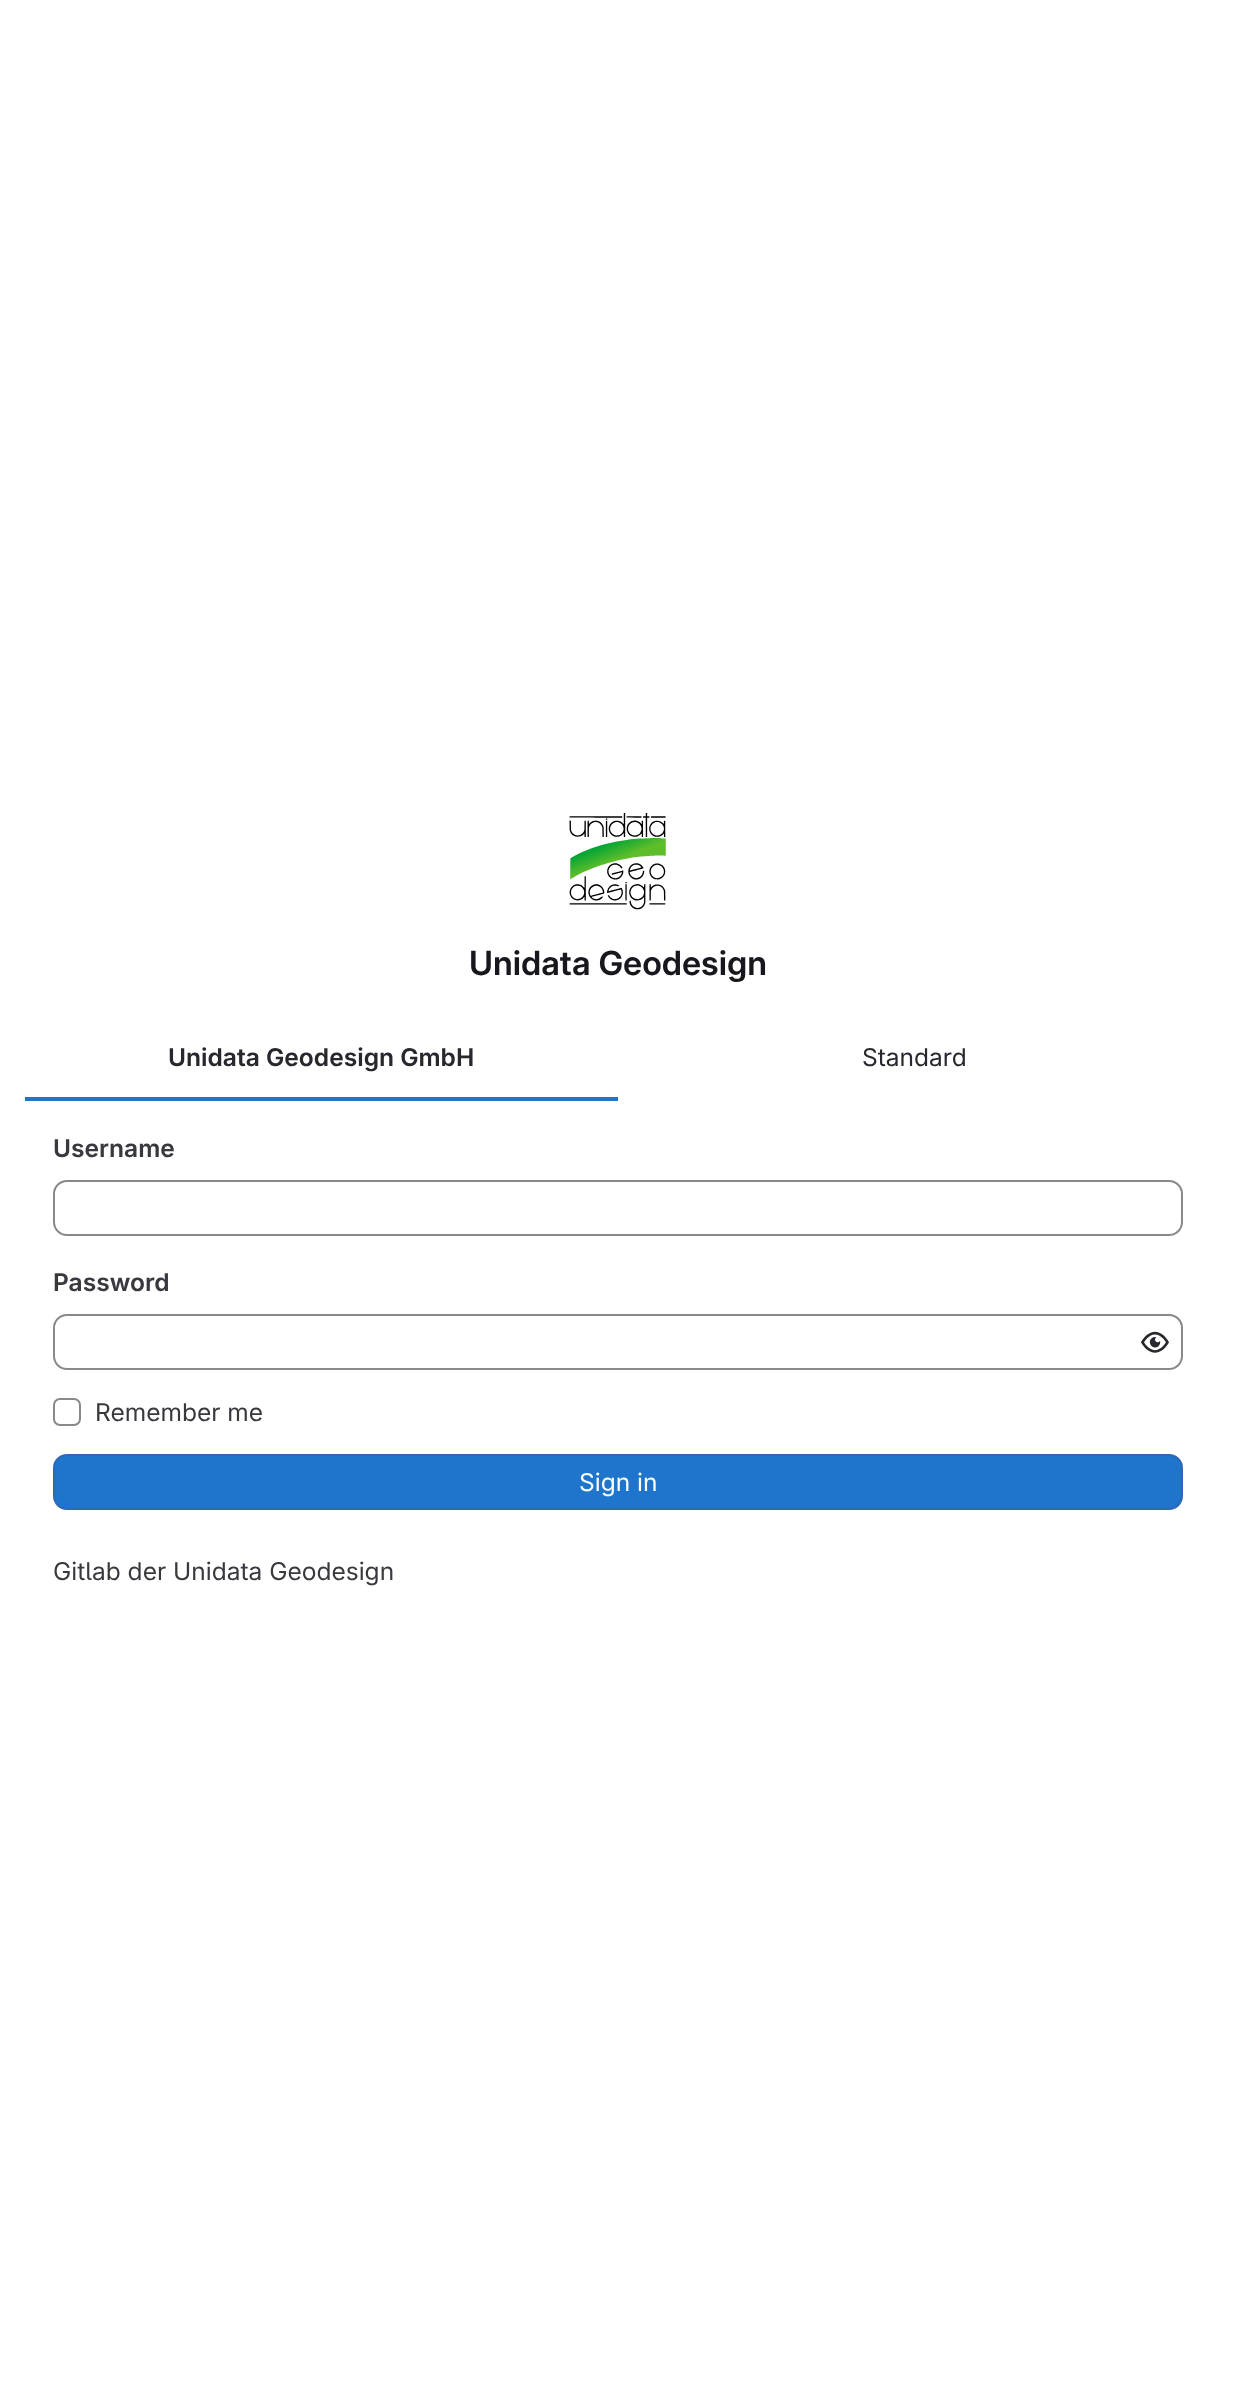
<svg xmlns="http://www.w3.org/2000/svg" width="1234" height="2401">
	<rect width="100%" height="100%" fill="#FFFFFF" />
	<image x="569" y="813" width="97" height="97" href="assets/img1.png" />
	<text x="469" y="975" font-family="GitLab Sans" font-size="33.25" font-weight="600" fill="#18171D">Unidata Geodesign</text>
	<text x="168" y="1066" font-family="'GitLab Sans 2'" font-size="24.5" font-weight="600" fill="#28272D">Unidata Geodesign GmbH</text>
	<rect x="25" y="1097" width="593" height="4" fill="#1F75CB" />
	<text x="862" y="1066" font-family="GitLab Sans" font-size="24.5" fill="#28272D">Standard</text>
	<text x="53" y="1157" font-family="'GitLab Sans 2'" font-size="24.5" font-weight="600" fill="#3A383F">Username</text>
	<rect x="54" y="1181" width="1128" height="54" rx="13" fill="none" stroke="#89888D" stroke-width="2" />
	<text x="53" y="1291" font-family="'GitLab Sans 2'" font-size="24.5" font-weight="600" fill="#3A383F">Password</text>
	<rect x="54" y="1315" width="1128" height="54" rx="13" fill="none" stroke="#89888D" stroke-width="2" />
	<image x="1141" y="1331" width="28" height="22" href="assets/img2.png" />
	<rect x="54" y="1399" width="26" height="26" rx="6" fill="none" stroke="#89888D" stroke-width="2" />
	<text x="95" y="1421" font-family="GitLab Sans" font-size="24.5" fill="#3A383F">Remember me</text>
	<rect x="54" y="1455" width="1128" height="54" rx="13" fill="#1F75CB" stroke="#2F68B4" stroke-width="2" />
	<text x="579" y="1491" font-family="GitLab Sans" font-size="24.5" fill="#FFFFFF">Sign in</text>
	<text x="53" y="1580" font-family="GitLab Sans" font-size="24.5" fill="#3A383F">Gitlab der Unidata Geodesign</text>
</svg>
